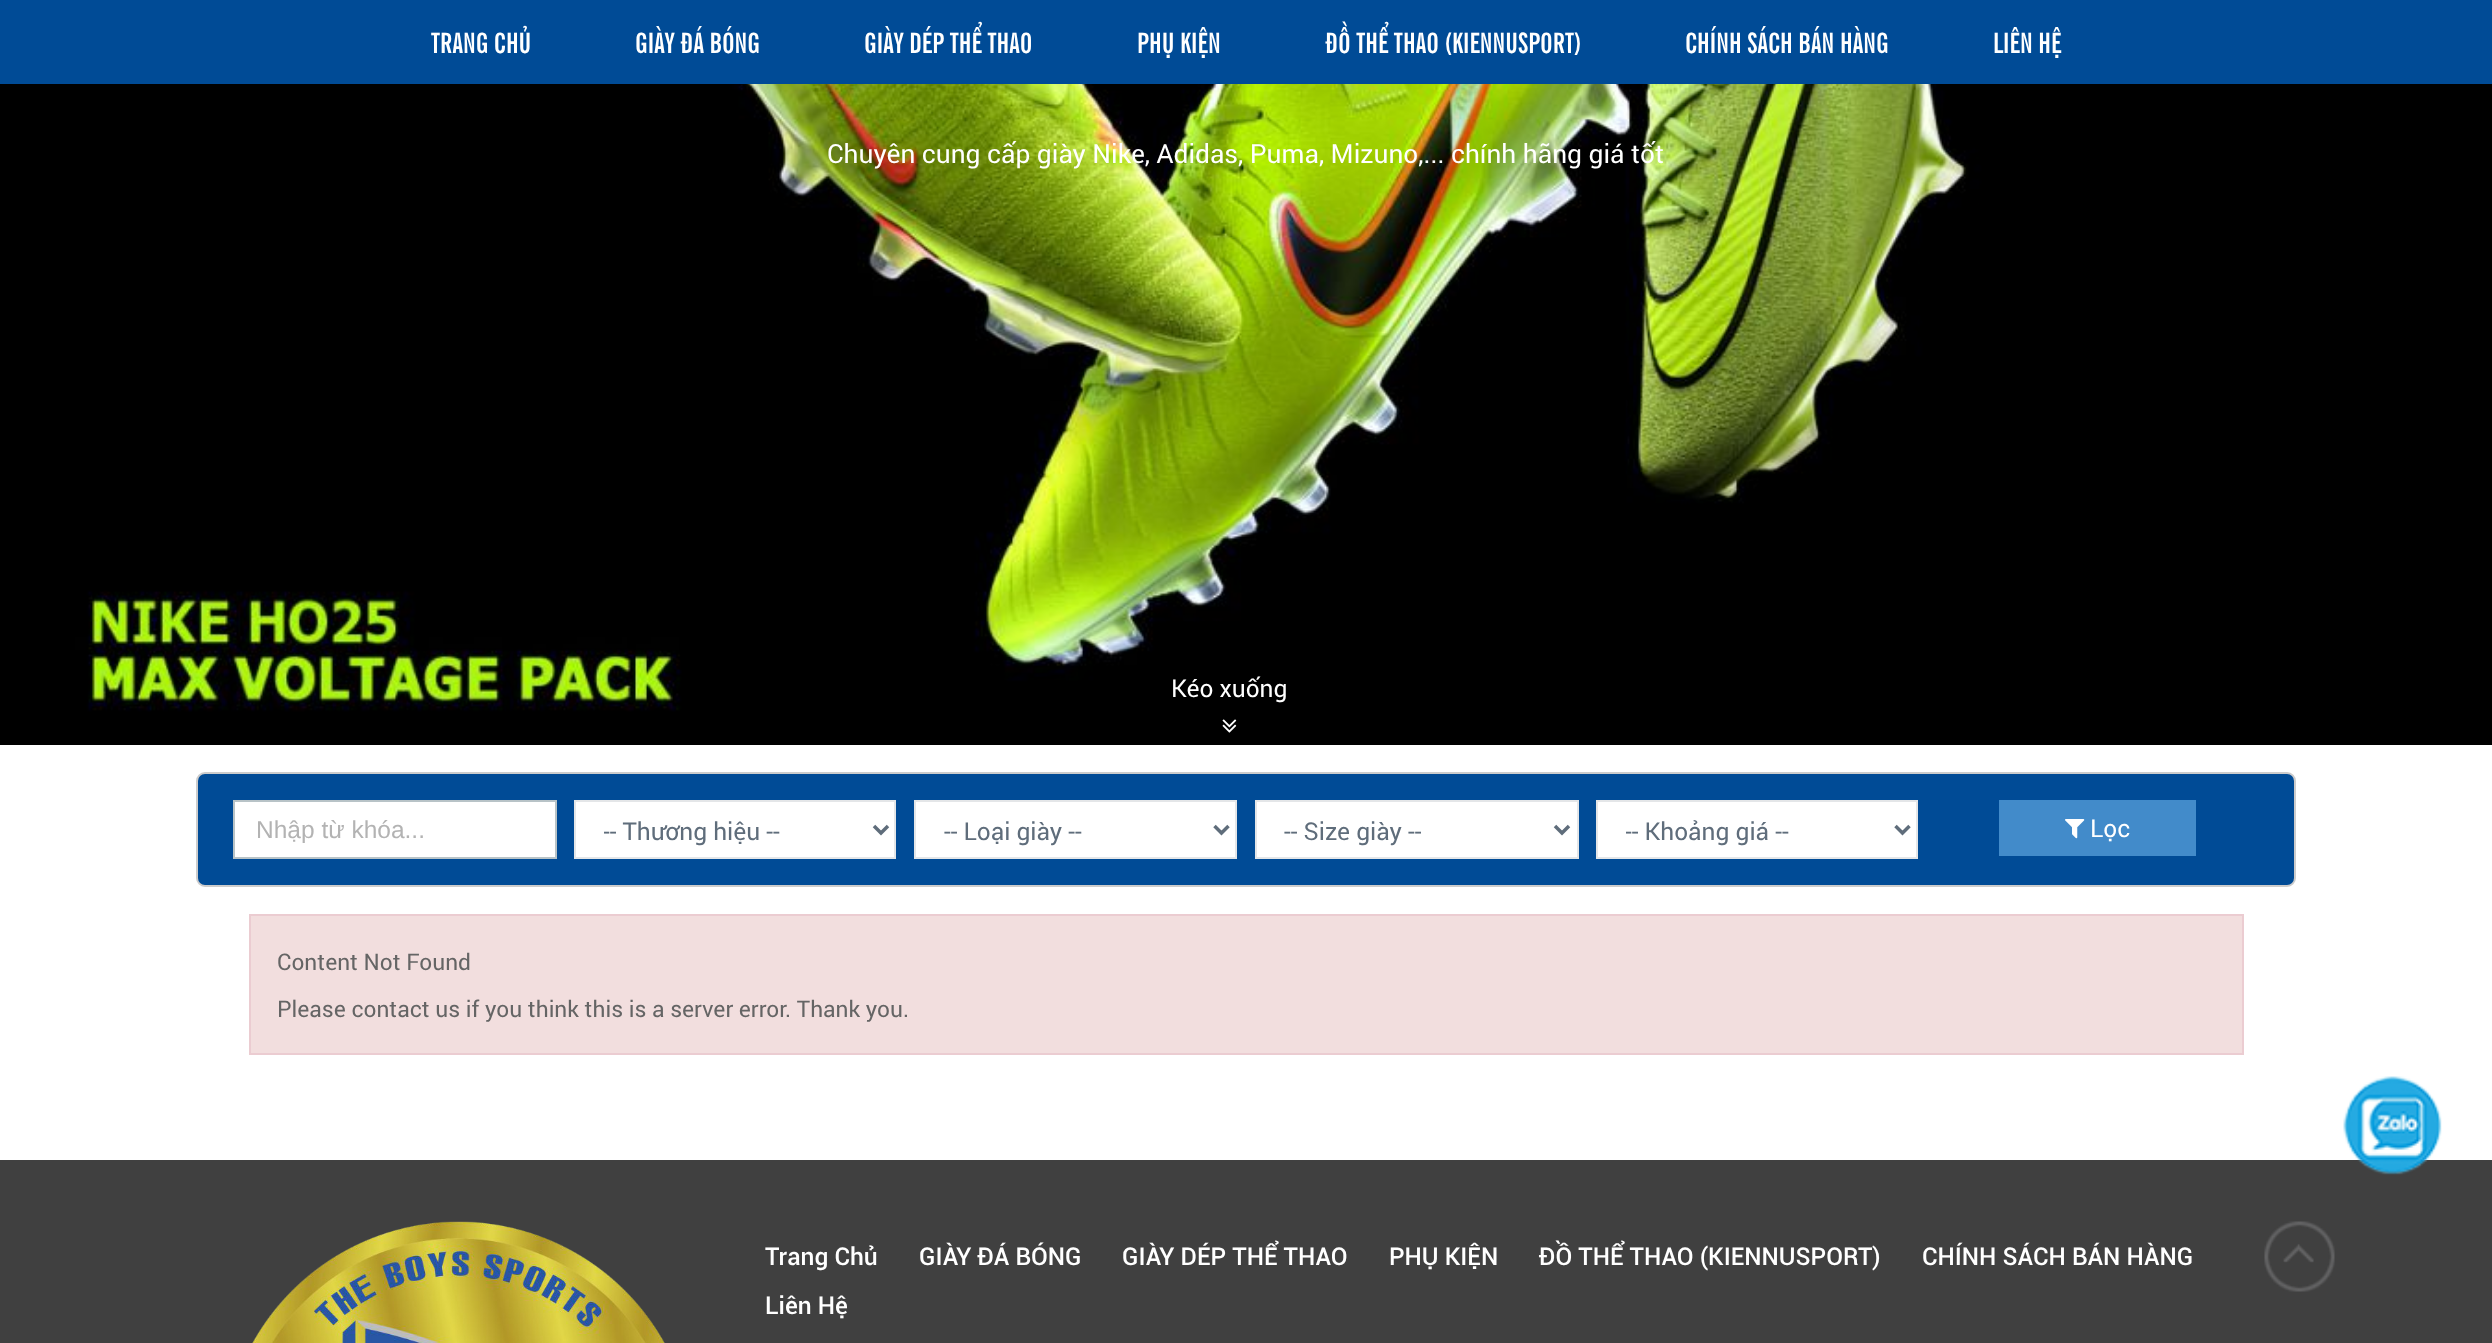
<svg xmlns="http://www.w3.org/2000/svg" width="2492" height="1343">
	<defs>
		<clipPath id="clip1"><rect x="604" y="812" width="241" height="37" /></clipPath>
		<clipPath id="clip2"><rect x="1626" y="812" width="241" height="37" /></clipPath>
	</defs>
	<rect width="100%" height="100%" fill="#FFFFFF" />
	<rect x="0" y="0" width="2492" height="84" fill="#004B96" />
	<g font-family="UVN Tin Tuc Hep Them" font-size="28" font-weight="700" fill="#FFFFFF">
		<text x="431" y="53">TRANG CHỦ</text>
		<text x="635" y="53">GIÀY ĐÁ BÓNG</text>
		<text x="864" y="53">GIÀY DÉP THỂ THAO</text>
		<text x="1137" y="53">PHỤ KIỆN</text>
		<text x="1325" y="53">ĐỒ THỂ THAO (KIENNUSPORT)</text>
		<text x="1685" y="53">CHÍNH SÁCH BÁN HÀNG</text>
		<text x="1993" y="53">LIÊN HỆ</text>
	</g>
	<image x="0" y="84" width="2492" height="661" href="assets/img1.png" />
	<text x="827" y="163" font-family="Roboto" font-size="26.25" fill="#FFFFFF">Chuyên cung cấp giày Nike, Adidas, Puma, Mizuno,... chính hãng giá tốt</text>
	<text x="1171" y="697" font-family="Roboto" font-size="24.5" fill="#FFFFFF">Kéo xuống</text>
	<image x="1222" y="719" width="15" height="14" href="assets/img2.png" />
	<rect x="197" y="773" width="2098" height="113" rx="8" fill="#004B96" stroke="#CCCCCC" stroke-width="2" />
	<rect x="234" y="801" width="322" height="57" fill="#FFFFFF" stroke="#B8C3C7" stroke-width="2" />
	<text x="256" y="838" font-family="Liberation Sans" font-size="24.5" fill="#B3B3B3">Nhập từ khóa...</text>
	<rect x="575" y="801" width="320" height="57" fill="#FFFFFF" stroke="#E4E6E8" stroke-width="2" />
	<path d="M874 826L881 833L888 826" fill="none" stroke="#5F6D7B" stroke-width="3.5" />
	<g clip-path="url(#clip1)">
		<text x="603" y="840" font-family="Roboto" font-size="24.5" fill="#5F6D7B">-- Thương hiệu --</text>
	</g>
	<rect x="915" y="801" width="321" height="57" fill="#FFFFFF" stroke="#E4E6E8" stroke-width="2" />
	<path d="M1214.5 826L1221.5 833L1228.5 826" fill="none" stroke="#5F6D7B" stroke-width="3.5" />
	<text x="944" y="840" font-family="Roboto" font-size="24.5" fill="#5F6D7B">-- Loại giày --</text>
	<rect x="1256" y="801" width="322" height="57" fill="#FFFFFF" stroke="#E4E6E8" stroke-width="2" />
	<path d="M1555 826L1562 833L1569 826" fill="none" stroke="#5F6D7B" stroke-width="3.5" />
	<text x="1284" y="840" font-family="Roboto" font-size="24.5" fill="#5F6D7B">-- Size giày --</text>
	<rect x="1597" y="801" width="320" height="57" fill="#FFFFFF" stroke="#E4E6E8" stroke-width="2" />
	<path d="M1895.5 826L1902.5 833L1909.5 826" fill="none" stroke="#5F6D7B" stroke-width="3.5" />
	<g clip-path="url(#clip2)">
		<text x="1625" y="840" font-family="Roboto" font-size="24.5" fill="#5F6D7B">-- Khoảng giá --</text>
	</g>
	<rect x="1999" y="800" width="197" height="56" fill="#428BCA" />
	<image x="2065" y="819" width="20" height="20" href="assets/img3.png" />
	<text x="2090" y="837" font-family="Roboto" font-size="24.5" fill="#FFFFFF">Lọc</text>
	<rect x="250" y="915" width="1993" height="139" fill="#F2DEDE" stroke="#EBCCD1" stroke-width="2" />
	<g font-family="Roboto" font-size="22.75" fill="#656565">
		<text x="277" y="970">Content Not Found</text>
		<text x="277" y="1017">Please contact us if you think this is a server error. Thank you.</text>
	</g>
	<rect x="0" y="1160" width="2492" height="183" fill="#404040" />
	<image x="2343" y="1076" width="99" height="99" href="assets/img4.png" />
	<image x="252" y="1221" width="413" height="122" href="assets/img5.png" />
	<g font-family="Roboto" font-size="24.5" font-weight="500" fill="#FFFFFF">
		<text x="765" y="1265">Trang Chủ</text>
		<text x="919" y="1265">GIÀY ĐÁ BÓNG</text>
		<text x="1122" y="1265">GIÀY DÉP THỂ THAO</text>
		<text x="1389" y="1265">PHỤ KIỆN</text>
		<text x="1539" y="1265">ĐỒ THỂ THAO (KIENNUSPORT)</text>
		<text x="1922" y="1265">CHÍNH SÁCH BÁN HÀNG</text>
		<text x="765" y="1314">Liên Hệ</text>
	</g>
	<image x="2264" y="1221" width="71" height="71" href="assets/img6.png" />
</svg>
